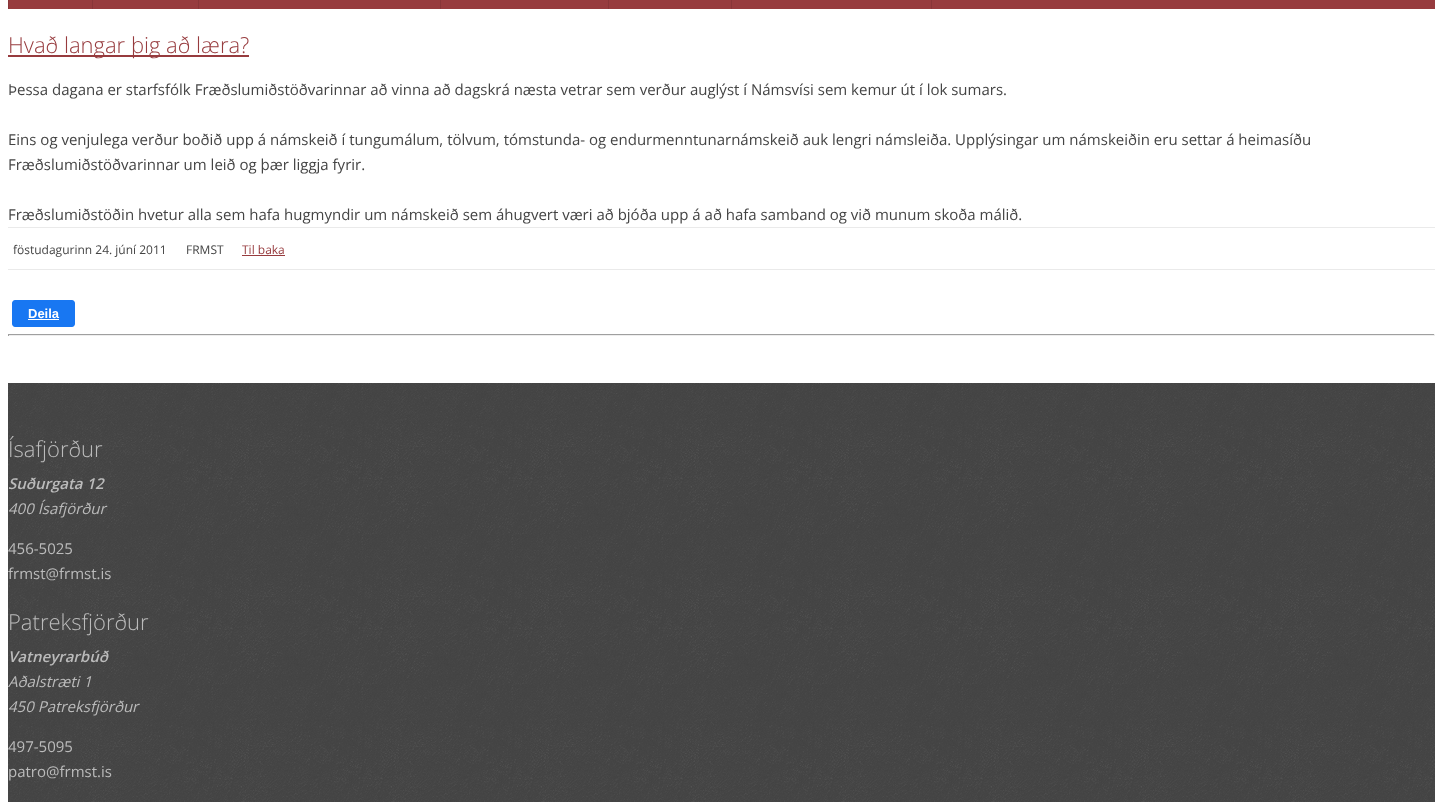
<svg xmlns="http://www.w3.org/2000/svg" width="1443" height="802">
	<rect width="100%" height="100%" fill="#FFFFFF" />
	<rect x="9" y="0" width="1426" height="9" fill="#973B3E" />
	<rect x="8" y="0" width="1" height="9" fill="#883538" />
	<rect x="92" y="0" width="1" height="9" fill="#883538" />
	<rect x="198" y="0" width="1" height="9" fill="#883538" />
	<rect x="440" y="0" width="1" height="9" fill="#883538" />
	<rect x="608" y="0" width="1" height="9" fill="#883538" />
	<rect x="731" y="0" width="1" height="9" fill="#883538" />
	<rect x="931" y="0" width="1" height="9" fill="#883538" />
	<rect x="8" y="55" width="241" height="2" fill="#973B3E" />
	<text x="8" y="53" font-family="Open Sans" font-size="22" font-weight="300" fill="#973B3E">Hvað langar þig að læra?</text>
	<g font-family="Open Sans" font-size="15" fill="#444444">
		<text x="8" y="95">Þessa dagana er starfsfólk Fræðslumiðstöðvarinnar að vinna að dagskrá næsta vetrar sem verður auglýst í Námsvísi sem kemur út í lok sumars.</text>
		<text x="8" y="145">Eins og venjulega verður boðið upp á námskeið í tungumálum, tölvum, tómstunda- og endurmenntunarnámskeið auk lengri námsleiða. Upplýsingar um námskeiðin eru settar á heimasíðu</text>
		<text x="8" y="170">Fræðslumiðstöðvarinnar um leið og þær liggja fyrir.</text>
		<text x="8" y="220">Fræðslumiðstöðin hvetur alla sem hafa hugmyndir um námskeið sem áhugvert væri að bjóða upp á að hafa samband og við munum skoða málið.</text>
	</g>
	<rect x="8" y="227" width="1427" height="1" fill="#EAEAEA" />
	<rect x="8" y="269" width="1427" height="1" fill="#EAEAEA" />
	<g font-family="Open Sans" font-size="12" fill="#444444">
		<text x="13" y="254">föstudagurinn 24. júní 2011</text>
		<text x="186" y="254">FRMST</text>
	</g>
	<text x="242" y="254" font-family="Open Sans" font-size="12" fill="#973B3E">Til baka</text>
	<rect x="242" y="255" width="43" height="1" fill="#973B3E" />
	<path d="M28 300H72C73.5 300 75 301.5 75 303V324C75 325.5 73.5 327 72 327H28Z" fill="#1877F2" />
	<text x="28" y="318" font-family="Liberation Sans" font-size="13" font-weight="700" fill="#FFFFFF">Deila</text>
	<path d="M15 300H28V327H15C13.5 327 12 325.5 12 324V303C12 301.5 13.5 300 15 300Z" fill="#1877F2" />
	<rect x="28" y="319" width="31" height="1" fill="#FFFFFF" />
	<rect x="8" y="334" width="1427" height="1" fill="#9F9F9F" />
	<rect x="1434" y="334" width="1" height="2" fill="#EEEEEE" />
	<rect x="8" y="335" width="1427" height="1" fill="#EEEEEE" />
	<rect x="8" y="334" width="1" height="2" fill="#9F9F9F" />
	<image x="8" y="383" width="1427" height="419" href="assets/img1.png" />
	<text x="8" y="457" font-family="Open Sans" font-size="22" font-weight="300" fill="#BBBBBB">Ísafjörður</text>
	<text x="8" y="489" font-family="Open Sans" font-size="15" font-weight="600" font-style="italic" fill="#BBBBBB">Suðurgata 12</text>
	<text x="8" y="514" font-family="Open Sans" font-size="15" font-style="italic" fill="#BBBBBB">400 Ísafjörður</text>
	<g font-family="Open Sans" font-size="15" fill="#BBBBBB">
		<text x="8" y="554">456-5025</text>
		<text x="8" y="579">frmst@frmst.is</text>
	</g>
	<text x="8" y="630" font-family="Open Sans" font-size="22" font-weight="300" fill="#BBBBBB">Patreksfjörður</text>
	<text x="8" y="662" font-family="Open Sans" font-size="15" font-weight="600" font-style="italic" fill="#BBBBBB">Vatneyrarbúð</text>
	<g font-family="Open Sans" font-size="15" font-style="italic" fill="#BBBBBB">
		<text x="8" y="687">Aðalstræti 1</text>
		<text x="8" y="712">450 Patreksfjörður</text>
	</g>
	<g font-family="Open Sans" font-size="15" fill="#BBBBBB">
		<text x="8" y="752">497-5095</text>
		<text x="8" y="777">patro@frmst.is</text>
	</g>
</svg>
